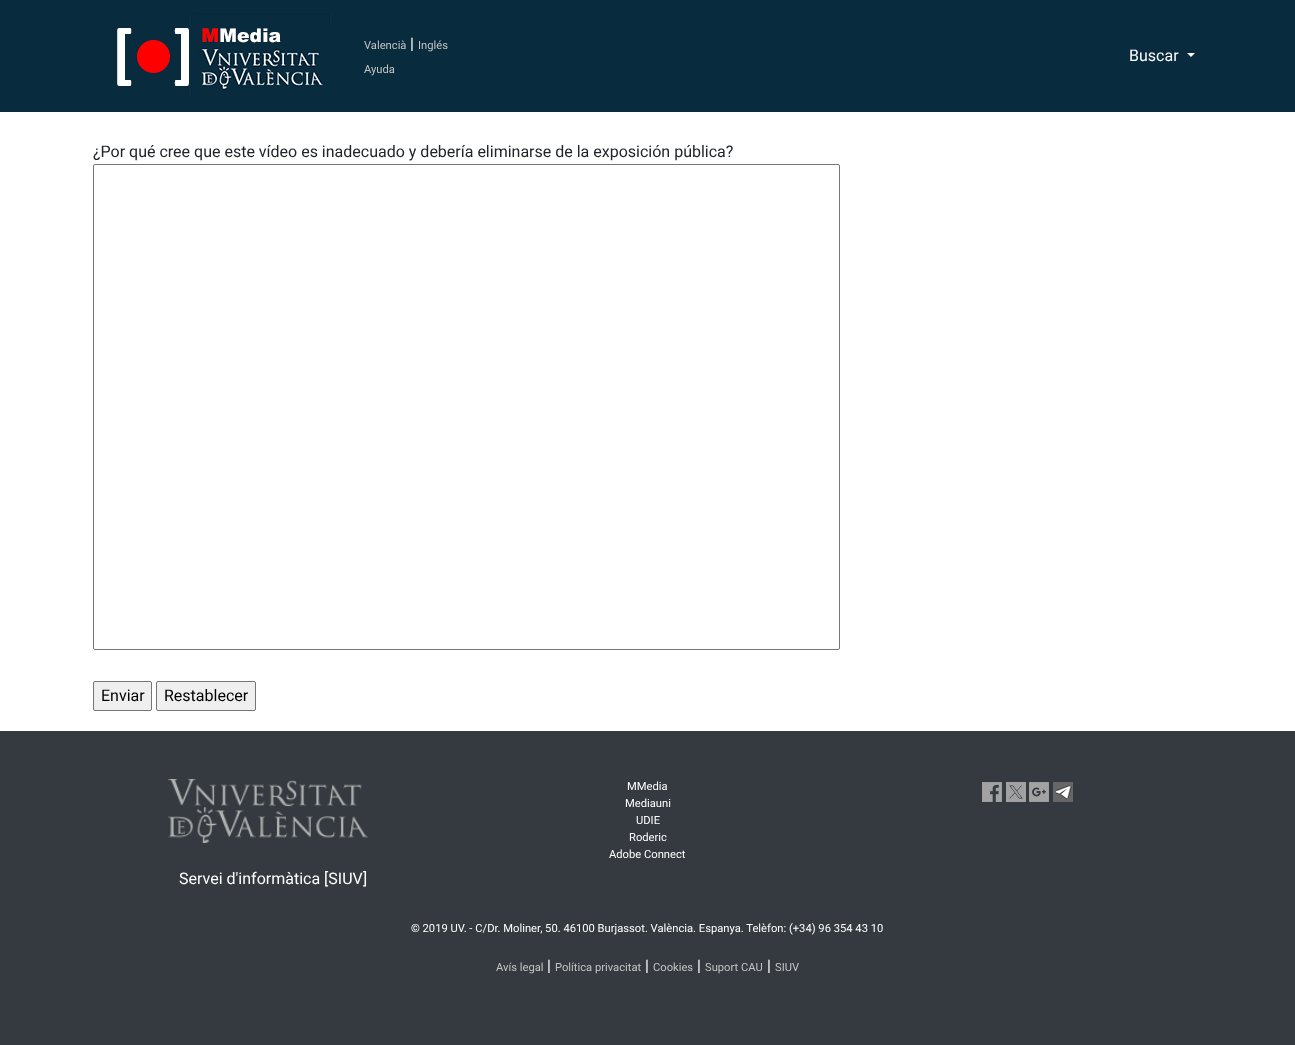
<svg xmlns="http://www.w3.org/2000/svg" width="1295" height="1045">
	<rect width="100%" height="100%" fill="#FFFFFF" />
	<rect x="0" y="0" width="1295" height="112" fill="#082B3E" />
	<image x="117" y="13" width="214" height="86" href="assets/img1.png" />
	<text x="364" y="49" font-family="Roboto" font-size="11.2" fill="#C4C4C4">Valencià</text>
	<text x="410" y="49" font-family="Roboto" font-size="16" fill="#FFFFFF">|</text>
	<g font-family="Roboto" font-size="11.2" fill="#C4C4C4">
		<text x="418" y="49">Inglés</text>
		<text x="364" y="73">Ayuda</text>
	</g>
	<text x="1129" y="61" font-family="Roboto" font-size="16" fill="#FFFFFF">Buscar</text>
	<path d="M1187 53H1195L1191 57Z" fill="#FFFFFF" />
	<text x="93" y="157" font-family="Roboto" font-size="16" fill="#212529">¿Por qué cree que este vídeo es inadecuado y debería eliminarse de la exposición pública?</text>
	<rect x="93.5" y="164.5" width="746" height="485" rx="1.5" fill="none" stroke="#767676" />
	<rect x="93.5" y="681.5" width="58" height="29" rx="1.5" fill="#EFEFEF" stroke="#767676" />
	<text x="101" y="701" font-family="Roboto" font-size="16" fill="#000000">Enviar</text>
	<rect x="156.5" y="681.5" width="99" height="29" rx="1.5" fill="#EFEFEF" stroke="#767676" />
	<text x="164" y="701" font-family="Roboto" font-size="16" fill="#000000">Restablecer</text>
	<rect x="0" y="731" width="1295" height="314" fill="#343A40" />
	<g font-family="Roboto" font-size="11.2" fill="#FFFFFF">
		<text x="627" y="790">MMedia</text>
		<text x="625" y="807">Mediauni</text>
		<text x="636" y="824">UDIE</text>
		<text x="629" y="841">Roderic</text>
		<text x="609" y="858">Adobe Connect</text>
	</g>
	<image x="982" y="782" width="20" height="20" href="assets/img2.png" />
	<image x="1006" y="782" width="20" height="20" href="assets/img3.png" />
	<image x="1029" y="782" width="20" height="20" href="assets/img4.png" />
	<image x="1053" y="782" width="20" height="20" href="assets/img5.png" />
	<image x="168" y="779" width="200" height="64" href="assets/img6.png" />
	<text x="179" y="884" font-family="Roboto" font-size="16" fill="#FFFFFF">Servei d'informàtica [SIUV]</text>
	<text x="411" y="932" font-family="Roboto" font-size="11.2" fill="#FFFFFF">© 2019 UV. - C/Dr. Moliner, 50. 46100 Burjassot. València. Espanya. Telèfon: (+34) 96 354 43 10</text>
	<text x="496" y="971" font-family="Roboto" font-size="11.2" fill="#C4C4C4">Avís legal</text>
	<text x="547" y="971" font-family="Roboto" font-size="16" fill="#FFFFFF">|</text>
	<text x="555" y="971" font-family="Roboto" font-size="11.2" fill="#C4C4C4">Política privacitat</text>
	<text x="645" y="971" font-family="Roboto" font-size="16" fill="#FFFFFF">|</text>
	<text x="653" y="971" font-family="Roboto" font-size="11.2" fill="#C4C4C4">Cookies</text>
	<text x="697" y="971" font-family="Roboto" font-size="16" fill="#FFFFFF">|</text>
	<text x="705" y="971" font-family="Roboto" font-size="11.2" fill="#C4C4C4">Suport CAU</text>
	<text x="767" y="971" font-family="Roboto" font-size="16" fill="#FFFFFF">|</text>
	<text x="775" y="971" font-family="Roboto" font-size="11.2" fill="#C4C4C4">SIUV</text>
</svg>
